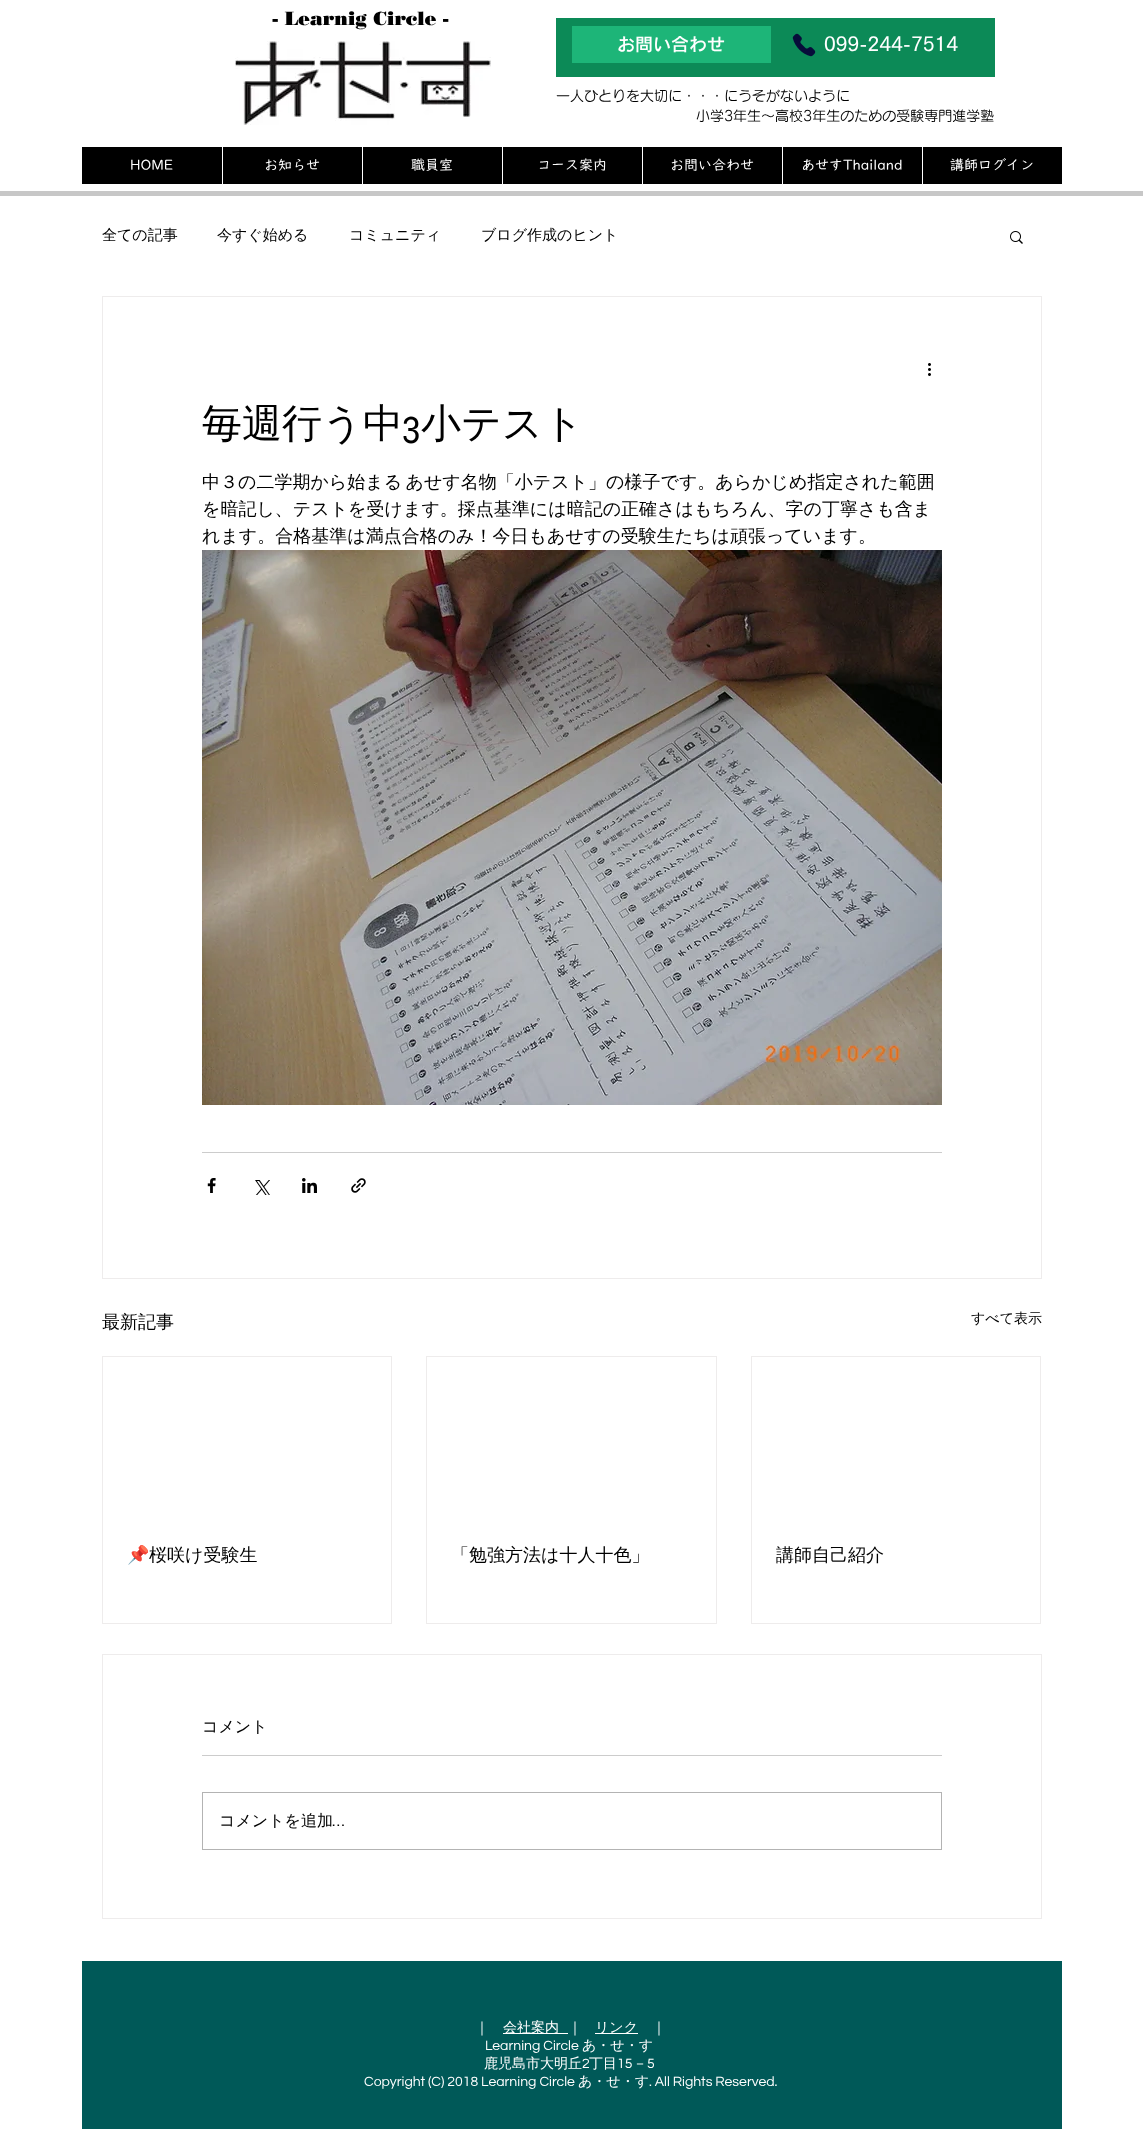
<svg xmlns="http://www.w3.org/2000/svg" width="1143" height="2129">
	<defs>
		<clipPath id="clip1"><rect x="127" y="1543" width="240" height="24" /></clipPath>
	</defs>
	<rect width="100%" height="100%" fill="#FFFFFF" />
	<text x="272" y="25" font-family="'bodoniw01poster'" font-size="19" font-weight="900" fill="#000000">- Learnig Circle -</text>
	<image x="235" y="41" width="256" height="84" href="assets/img1.png" />
	<rect x="556" y="18" width="439" height="59" fill="#0C8A57" />
	<rect x="572" y="26" width="199" height="37" fill="#1DB578" />
	<text x="617" y="51" font-family="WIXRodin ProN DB" font-size="18" font-weight="600" fill="#FFFFFF">お問い合わせ</text>
	<image x="792" y="33" width="24" height="24" href="assets/img2.png" />
	<text x="824" y="51" font-family="'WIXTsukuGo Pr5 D'" font-size="20" font-weight="600" fill="#FFFFFF">099-244-7514</text>
	<g font-family="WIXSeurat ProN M" font-size="14" font-weight="500" fill="#000000">
		<text x="556" y="101">一人ひとりを大切に・・・にうそがないように</text>
		<text x="696" y="121">小学3年生～高校3年生のための受験専門進学塾</text>
	</g>
	<rect x="82" y="147" width="980" height="37" fill="#000000" />
	<text x="130" y="170" font-family="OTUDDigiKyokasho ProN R" font-size="14" fill="#FFFFFF">HOME</text>
	<rect x="222" y="147" width="1" height="37" fill="#FFFFFF" />
	<text x="264" y="170" font-family="OTUDDigiKyokasho ProN R" font-size="14" fill="#FFFFFF">お知らせ</text>
	<rect x="362" y="147" width="1" height="37" fill="#FFFFFF" />
	<text x="411" y="170" font-family="OTUDDigiKyokasho ProN R" font-size="14" fill="#FFFFFF">職員室</text>
	<rect x="502" y="147" width="1" height="37" fill="#FFFFFF" />
	<text x="537" y="170" font-family="OTUDDigiKyokasho ProN R" font-size="14" fill="#FFFFFF">コース案内</text>
	<rect x="642" y="147" width="1" height="37" fill="#FFFFFF" />
	<text x="670" y="170" font-family="OTUDDigiKyokasho ProN R" font-size="14" fill="#FFFFFF">お問い合わせ</text>
	<rect x="782" y="147" width="1" height="37" fill="#FFFFFF" />
	<text x="801" y="170" font-family="OTUDDigiKyokasho ProN R" font-size="14" fill="#FFFFFF">あせすThailand</text>
	<rect x="922" y="147" width="1" height="37" fill="#FFFFFF" />
	<text x="950" y="170" font-family="OTUDDigiKyokasho ProN R" font-size="14" fill="#FFFFFF">講師ログイン</text>
	<rect x="0" y="191" width="1143" height="5" fill="#C7C7C7" />
	<g font-family="WenQuanYi Zen Hei" font-size="15" font-weight="500" fill="#000000">
		<text x="102" y="240">全ての記事</text>
		<text x="217" y="240">今すぐ始める</text>
		<text x="349" y="240">コミュニティ</text>
		<text x="481" y="240">ブログ作成のヒント</text>
	</g>
	<image x="1010" y="231" width="13" height="13" href="assets/img3.png" />
	<rect x="102.5" y="296.5" width="939" height="982" fill="none" stroke="#EEECEC" />
	<image x="928" y="363" width="3" height="13" href="assets/img4.png" />
	<text x="202" y="437" font-family="WenQuanYi Zen Hei" font-size="40" font-weight="500" fill="#000000">毎週行う中</text>
	<text x="402" y="437" font-family="Syne" font-size="40" fill="#000000">3</text>
	<text x="421" y="437" font-family="WenQuanYi Zen Hei" font-size="40" font-weight="500" fill="#000000">小テスト</text>
	<g font-family="WenQuanYi Zen Hei" font-size="18" font-weight="500" fill="#000000">
		<text x="202" y="488" word-spacing="-2">中３の二学期から始まる あせす名物「小テスト」の様子です。あらかじめ指定された範囲</text>
		<text x="202" y="515">を暗記し、テストを受けます。採点基準には暗記の正確さはもちろん、字の丁寧さも含ま</text>
		<text x="202" y="542">れます。合格基準は満点合格のみ！今日もあせすの受験生たちは頑張っています。</text>
	</g>
	<image x="202" y="550" width="740" height="555" href="assets/img5.png" />
	<rect x="202" y="1152" width="740" height="1" fill="#CCCCCC" />
	<image x="207" y="1178" width="9" height="15" href="assets/img6.png" />
	<image x="255" y="1180" width="15" height="15" href="assets/img7.png" />
	<image x="302" y="1178" width="15" height="15" href="assets/img8.png" />
	<image x="351" y="1178" width="15" height="15" href="assets/img9.png" />
	<text x="102" y="1328" font-family="WenQuanYi Zen Hei" font-size="18" font-weight="500" fill="#000000">最新記事</text>
	<text x="971" y="1323" font-family="WenQuanYi Zen Hei" font-size="14" font-weight="500" fill="#000000">すべて表示</text>
	<rect x="102.5" y="1356.5" width="289" height="267" fill="none" stroke="#EEECEC" />
	<g clip-path="url(#clip1)">
		<text x="127" y="1561" font-family="Noto Color Emoji" font-size="18" fill="#000000">📌</text>
	</g>
	<text x="149" y="1561" font-family="WenQuanYi Zen Hei" font-size="18" font-weight="500" fill="#000000">桜咲け受験生</text>
	<rect x="426.5" y="1356.5" width="290" height="267" fill="none" stroke="#EEECEC" />
	<text x="451" y="1561" font-family="WenQuanYi Zen Hei" font-size="18" font-weight="500" fill="#000000">「勉強方法は十人十色」</text>
	<rect x="751.5" y="1356.5" width="289" height="267" fill="none" stroke="#EEECEC" />
	<text x="776" y="1561" font-family="WenQuanYi Zen Hei" font-size="18" font-weight="500" fill="#000000">講師自己紹介</text>
	<rect x="102.5" y="1654.5" width="939" height="264" fill="none" stroke="#EEECEC" />
	<text x="202" y="1732" font-family="WenQuanYi Zen Hei" font-size="16" font-weight="500" fill="#000000">コメント</text>
	<rect x="202" y="1755" width="740" height="1" fill="#CCCCCC" />
	<rect x="202.5" y="1792.5" width="739" height="57" fill="none" stroke="#B3B3B3" />
	<text x="219" y="1826" font-family="WenQuanYi Zen Hei" font-size="16" font-weight="500" fill="#000000">コメントを追加</text>
	<text x="332" y="1826" font-family="Questrial" font-size="16" fill="#000000">…</text>
	<rect x="82" y="1961" width="980" height="168" fill="#005958" />
	<text x="475" y="2032" font-family="WenQuanYi Zen Hei" font-size="14" font-weight="500" fill="#FFFFFF">｜</text>
	<rect x="503" y="2033" width="65" height="1" fill="#FFFFFF" />
	<g font-family="WenQuanYi Zen Hei" font-size="14" font-weight="500" fill="#FFFFFF">
		<text x="503" y="2032">会社案内</text>
		<text x="568" y="2032">｜</text>
	</g>
	<rect x="595" y="2033" width="43" height="1" fill="#FFFFFF" />
	<g font-family="WenQuanYi Zen Hei" font-size="14" font-weight="500" fill="#FFFFFF">
		<text x="595" y="2032">リンク</text>
		<text x="652" y="2032">｜</text>
	</g>
	<text x="485" y="2050" font-family="Questrial" font-size="14" fill="#FFFFFF">Learning Circle</text>
	<g font-family="WenQuanYi Zen Hei" font-size="14" font-weight="500" fill="#FFFFFF">
		<text x="582" y="2050">あ・せ・す</text>
		<text x="484" y="2068">鹿児島市大明丘</text>
	</g>
	<text x="582" y="2068" font-family="Questrial" font-size="14" fill="#FFFFFF">2</text>
	<text x="589" y="2068" font-family="WenQuanYi Zen Hei" font-size="14" font-weight="500" fill="#FFFFFF">丁目</text>
	<text x="617" y="2068" font-family="Questrial" font-size="14" fill="#FFFFFF">15</text>
	<text x="633" y="2068" font-family="WenQuanYi Zen Hei" font-size="14" font-weight="500" fill="#FFFFFF">－</text>
	<g font-family="Questrial" font-size="14" fill="#FFFFFF">
		<text x="647" y="2068">5</text>
		<text x="364" y="2086">Copyright (C) 2018 Learning Circle</text>
	</g>
	<text x="578" y="2086" font-family="WenQuanYi Zen Hei" font-size="14" font-weight="500" fill="#FFFFFF">あ・せ・す</text>
	<text x="649" y="2086" font-family="Questrial" font-size="14" fill="#FFFFFF">. All Rights Reserved.</text>
</svg>
